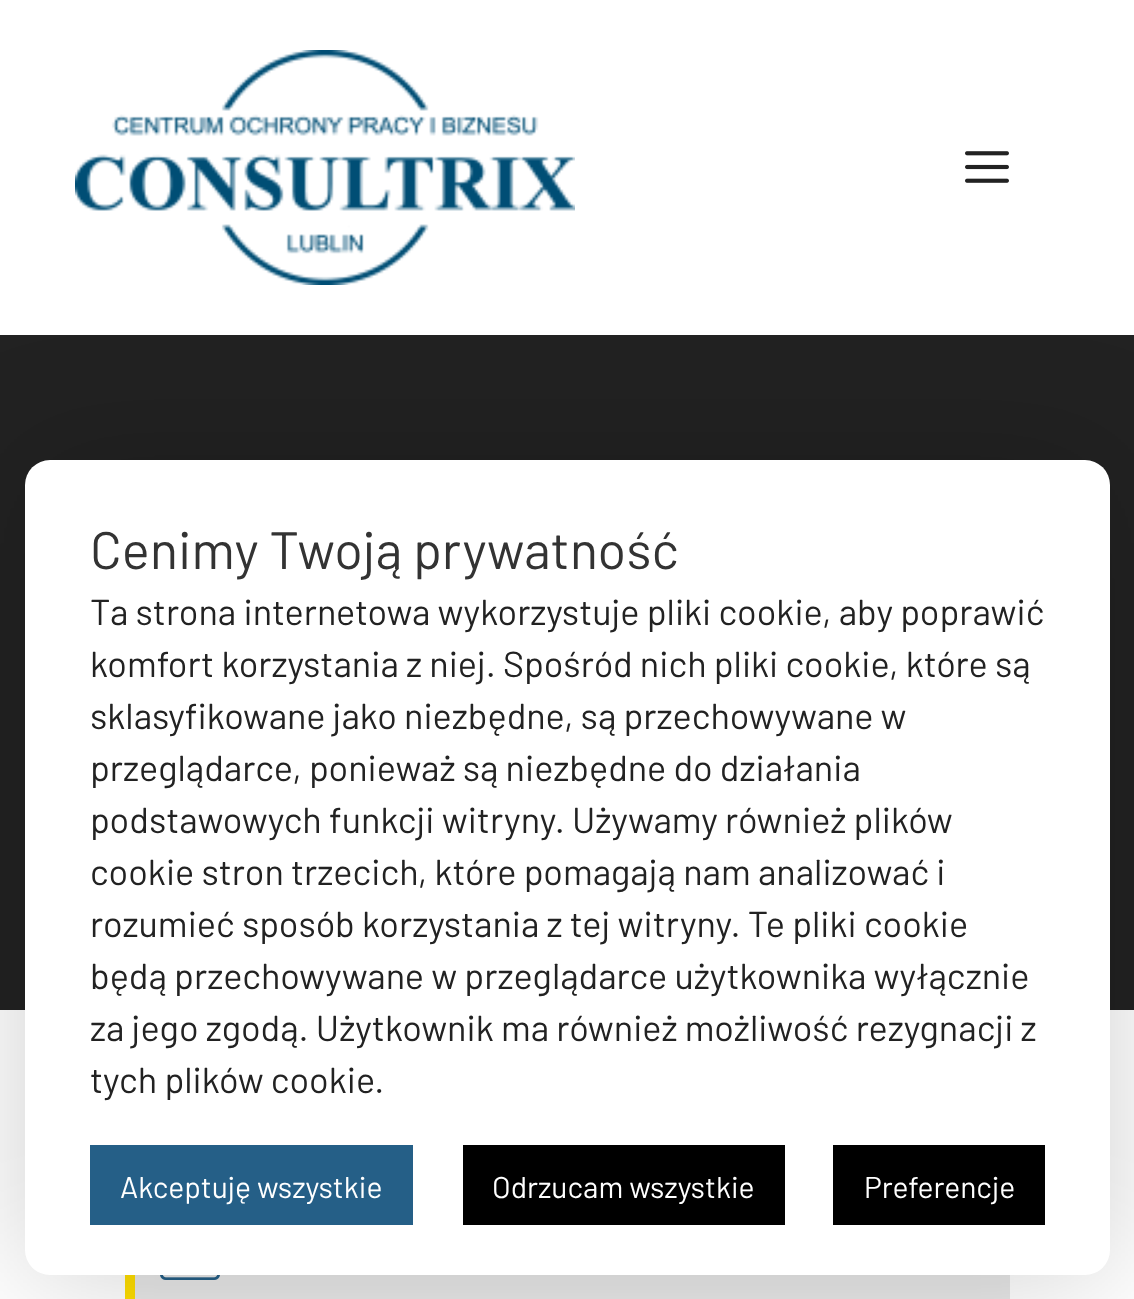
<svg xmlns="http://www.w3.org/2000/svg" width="1134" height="1299">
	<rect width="100%" height="100%" fill="#FFFFFF" />
	<image x="75" y="50" width="500" height="235" href="assets/img1.png" />
	<image x="965" y="151" width="44" height="32" href="assets/img2.png" />
	<rect x="0" y="335" width="1134" height="675" fill="#222222" />
	<rect x="135" y="1275" width="875" height="24" fill="#E8E8E8" />
	<rect x="125" y="1275" width="10" height="24" fill="#FFDE00" />
	<image x="160" y="1275" width="60" height="5" href="assets/img3.png" />
	<rect x="25" y="460" width="1085" height="815" rx="25" fill="#000000" fill-opacity="0.19" filter="blur(62.5px)" />
	<rect x="25" y="460" width="1085" height="815" rx="25" fill="#FFFFFF" />
	<text x="90" y="569" font-family="Barlow" font-size="52.5" fill="#333333">Cenimy Twoją prywatność</text>
	<g font-family="Barlow" font-size="36" fill="#222222">
		<text x="90" y="625">Ta strona internetowa wykorzystuje pliki cookie, aby poprawić</text>
		<text x="90" y="677">komfort korzystania z niej. Spośród nich pliki cookie, które są</text>
		<text x="90" y="729">sklasyfikowane jako niezbędne, są przechowywane w</text>
		<text x="90" y="781">przeglądarce, ponieważ są niezbędne do działania</text>
		<text x="90" y="833">podstawowych funkcji witryny. Używamy również plików</text>
		<text x="90" y="885">cookie stron trzecich, które pomagają nam analizować i</text>
		<text x="90" y="937">rozumieć sposób korzystania z tej witryny. Te pliki cookie</text>
		<text x="90" y="989">będą przechowywane w przeglądarce użytkownika wyłącznie</text>
		<text x="90" y="1041">za jego zgodą. Użytkownik ma również możliwość rezygnacji z</text>
		<text x="90" y="1093">tych plików cookie.</text>
	</g>
	<rect x="90" y="1145" width="323" height="80" fill="#255F87" />
	<text x="120" y="1198" font-family="Barlow" font-size="30" fill="#FFFFFF">Akceptuję wszystkie</text>
	<rect x="463" y="1145" width="322" height="80" fill="#000000" />
	<text x="492" y="1198" font-family="Barlow" font-size="30" fill="#FFFFFF">Odrzucam wszystkie</text>
	<rect x="833" y="1145" width="212" height="80" fill="#000000" />
	<text x="864" y="1198" font-family="Barlow" font-size="30" fill="#FFFFFF">Preferencje</text>
</svg>
